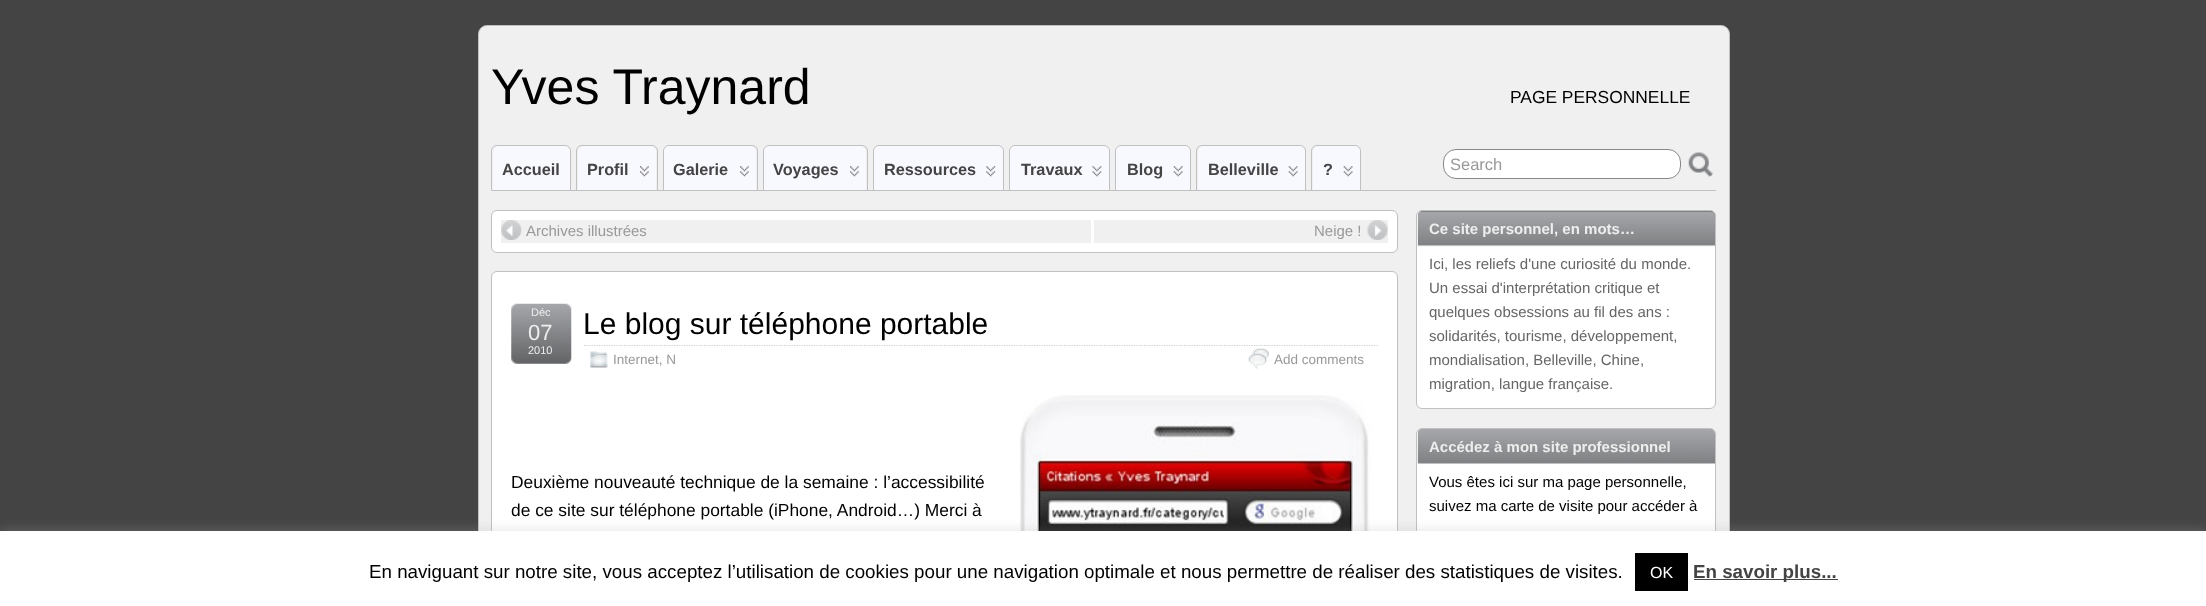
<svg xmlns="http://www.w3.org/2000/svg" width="2206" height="606">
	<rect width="100%" height="100%" fill="#444444" />
	<rect x="478.5" y="25.5" width="1251" height="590" rx="8.5" fill="#F0F0F0" stroke="#C0C0C0" />
	<text x="491" y="104" font-family="Liberation Sans" font-size="50" fill="#000000">Yves Traynard</text>
	<text x="1510" y="103" font-family="Liberation Sans" font-size="17.4" fill="#000000">PAGE PERSONNELLE</text>
	<rect x="571" y="190" width="1145" height="1" fill="#C0C0C0" />
	<path d="M497 145.5H565C568 145.5 570.5 148 570.5 151V190.5H491.5V151C491.5 148 494 145.5 497 145.5Z" fill="none" stroke="#C0C0C0" />
	<path d="M499 146H564C567.5 146 570 148.5 570 152V190H493V152C493 148.5 495.5 146 499 146Z" fill="#F8F8FF" />
	<text x="502" y="175" font-family="Liberation Sans" font-size="16.25" font-weight="700" fill="#444444">Accueil</text>
	<path d="M582 145.5H652C655 145.5 657.5 148 657.5 151V190.5H576.5V151C576.5 148 579 145.5 582 145.5Z" fill="none" stroke="#C0C0C0" />
	<path d="M584 146H650C653.5 146 656 148.5 656 152V190H578V152C578 148.5 580.5 146 584 146Z" fill="#F8F8FF" />
	<text x="587" y="175" font-family="Liberation Sans" font-size="16.25" font-weight="700" fill="#444444">Profil</text>
	<image x="640" y="166" width="9" height="11" href="assets/img1.png" />
	<path d="M669 145.5H752C755 145.5 757.5 148 757.5 151V190.5H663.5V151C663.5 148 666 145.5 669 145.5Z" fill="none" stroke="#C0C0C0" />
	<path d="M670 146H750C753.5 146 756 148.5 756 152V190H664V152C664 148.5 666.5 146 670 146Z" fill="#F8F8FF" />
	<text x="673" y="175" font-family="Liberation Sans" font-size="16.25" font-weight="700" fill="#444444">Galerie</text>
	<image x="740" y="166" width="9" height="11" href="assets/img2.png" />
	<path d="M769 145.5H862C865 145.5 867.5 148 867.5 151V190.5H763.5V151C763.5 148 766 145.5 769 145.5Z" fill="none" stroke="#C0C0C0" />
	<path d="M770 146H860C863.5 146 866 148.5 866 152V190H764V152C764 148.5 766.5 146 770 146Z" fill="#F8F8FF" />
	<text x="773" y="175" font-family="Liberation Sans" font-size="16.25" font-weight="700" fill="#444444">Voyages</text>
	<image x="850" y="166" width="9" height="11" href="assets/img1.png" />
	<path d="M879 145.5H998C1001 145.5 1003.5 148 1003.5 151V190.5H873.5V151C873.5 148 876 145.5 879 145.5Z" fill="none" stroke="#C0C0C0" />
	<path d="M880 146H997C1000.5 146 1003 148.5 1003 152V190H874V152C874 148.5 876.5 146 880 146Z" fill="#F8F8FF" />
	<text x="884" y="175" font-family="Liberation Sans" font-size="16.25" font-weight="700" fill="#444444">Ressources</text>
	<image x="986" y="166" width="10" height="11" href="assets/img3.png" />
	<path d="M1015 145.5H1104C1107 145.5 1109.5 148 1109.5 151V190.5H1009.5V151C1009.5 148 1012 145.5 1015 145.5Z" fill="none" stroke="#C0C0C0" />
	<path d="M1016 146H1103C1106.5 146 1109 148.5 1109 152V190H1010V152C1010 148.5 1012.5 146 1016 146Z" fill="#F8F8FF" />
	<text x="1021" y="175" font-family="Liberation Sans" font-size="16.25" font-weight="700" fill="#444444">Travaux</text>
	<image x="1092" y="166" width="10" height="11" href="assets/img4.png" />
	<path d="M1121 145.5H1185C1188 145.5 1190.5 148 1190.5 151V190.5H1115.5V151C1115.5 148 1118 145.5 1121 145.5Z" fill="none" stroke="#C0C0C0" />
	<path d="M1122 146H1184C1187.5 146 1190 148.5 1190 152V190H1116V152C1116 148.5 1118.5 146 1122 146Z" fill="#F8F8FF" />
	<text x="1127" y="175" font-family="Liberation Sans" font-size="16.25" font-weight="700" fill="#444444">Blog</text>
	<image x="1173" y="166" width="10" height="11" href="assets/img5.png" />
	<path d="M1202 145.5H1300C1303 145.5 1305.5 148 1305.5 151V190.5H1196.5V151C1196.5 148 1199 145.5 1202 145.5Z" fill="none" stroke="#C0C0C0" />
	<path d="M1204 146H1299C1302.5 146 1305 148.5 1305 152V190H1198V152C1198 148.5 1200.5 146 1204 146Z" fill="#F8F8FF" />
	<text x="1208" y="175" font-family="Liberation Sans" font-size="16.25" font-weight="700" fill="#444444">Belleville</text>
	<image x="1288" y="166" width="10" height="11" href="assets/img6.png" />
	<path d="M1317 145.5H1355C1358 145.5 1360.5 148 1360.5 151V190.5H1311.5V151C1311.5 148 1314 145.5 1317 145.5Z" fill="none" stroke="#C0C0C0" />
	<path d="M1319 146H1354C1357.5 146 1360 148.5 1360 152V190H1313V152C1313 148.5 1315.5 146 1319 146Z" fill="#F8F8FF" />
	<text x="1323" y="175" font-family="Liberation Sans" font-size="16.25" font-weight="700" fill="#444444">?</text>
	<image x="1343" y="166" width="10" height="11" href="assets/img6.png" />
	<rect x="1443.5" y="149.5" width="237" height="29" rx="12.5" fill="#FFFFFF" stroke="#888888" />
	<text x="1450" y="170" font-family="Liberation Sans" font-size="16.5" fill="#999999">Search</text>
	<image x="1688" y="152" width="25" height="25" href="assets/img7.png" />
	<rect x="491.5" y="210.5" width="906" height="42" rx="5.5" fill="#FFFFFF" stroke="#C0C0C0" />
	<rect x="501" y="220" width="590" height="23" fill="#F0F0F0" />
	<image x="501" y="220" width="21" height="20" href="assets/img8.png" />
	<text x="526" y="236" font-family="Liberation Sans" font-size="15" fill="#999999">Archives illustrées</text>
	<rect x="1094" y="220" width="294" height="23" fill="#F0F0F0" />
	<text x="1314" y="236" font-family="Liberation Sans" font-size="15" fill="#999999">Neige !</text>
	<image x="1367" y="220" width="21" height="20" href="assets/img9.png" />
	<rect x="491.5" y="271.5" width="906" height="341" rx="5.5" fill="#FFFFFF" stroke="#C0C0C0" />
	<image x="511" y="303" width="61" height="61" href="assets/img10.png" />
	<text x="531" y="316" font-family="Liberation Sans" font-size="11" fill="#EEEEEE">Déc</text>
	<text x="528" y="340" font-family="Liberation Sans" font-size="22" fill="#EEEEEE">07</text>
	<text x="528" y="354" font-family="Liberation Sans" font-size="11" fill="#EEEEEE">2010</text>
	<path d="M584 345.5H1377.5" fill="none" stroke="#CCCCCC" stroke-width="1.2" stroke-dasharray="1.25 1.25" />
	<text x="583" y="334" font-family="Liberation Sans" font-size="30" fill="#000000">Le blog sur téléphone portable</text>
	<image x="590" y="351" width="18" height="17" href="assets/img11.png" />
	<text x="613" y="364" font-family="Liberation Sans" font-size="13.5" fill="#999999">Internet, N</text>
	<image x="1248" y="348" width="21" height="21" href="assets/img12.png" />
	<text x="1274" y="364" font-family="Liberation Sans" font-size="13.5" fill="#999999">Add comments</text>
	<g font-family="Liberation Sans" font-size="17.4" fill="#000000">
		<text x="511" y="488">Deuxième nouveauté technique de la semaine : l’accessibilité</text>
		<text x="511" y="516">de ce site sur téléphone portable (iPhone, Android…) Merci à</text>
	</g>
	<image x="1019" y="395" width="352" height="136" href="assets/img13.png" />
	<rect x="1416.5" y="210.5" width="299" height="198" rx="5.5" fill="#FFFFFF" stroke="#C0C0C0" />
	<path d="M1423 211H1710C1713 211 1715 213 1715 216V246H1418V216C1418 213 1420 211 1423 211Z" fill="#636466" />
	<image x="1417" y="211" width="298" height="36" href="assets/img14.png" />
	<rect x="1418" y="245" width="297" height="1" fill="#C0C0C0" />
	<text x="1429" y="234" font-family="Liberation Sans" font-size="15" font-weight="700" fill="#EEEEEE">Ce site personnel, en mots…</text>
	<g font-family="Liberation Sans" font-size="15" fill="#666666">
		<text x="1429" y="269">Ici, les reliefs d'une curiosité du monde.</text>
		<text x="1429" y="293">Un essai d'interprétation critique et</text>
		<text x="1429" y="317">quelques obsessions au fil des ans :</text>
		<text x="1429" y="341">solidarités, tourisme, développement,</text>
		<text x="1429" y="365">mondialisation, Belleville, Chine,</text>
		<text x="1429" y="389">migration, langue française.</text>
	</g>
	<rect x="1416.5" y="428.5" width="299" height="150" rx="5.5" fill="#FFFFFF" stroke="#C0C0C0" />
	<image x="1417" y="429" width="298" height="35" href="assets/img15.png" />
	<rect x="1418" y="463" width="297" height="1" fill="#C0C0C0" />
	<text x="1429" y="452" font-family="Liberation Sans" font-size="15" font-weight="700" fill="#EEEEEE">Accédez à mon site professionnel</text>
	<g font-family="Liberation Sans" font-size="15" fill="#000000">
		<text x="1429" y="487">Vous êtes ici sur ma page personnelle,</text>
		<text x="1429" y="511">suivez ma carte de visite pour accéder à</text>
	</g>
	<rect x="0" y="530" width="2206" height="75" fill="#ACABAB" fill-opacity="0.3" filter="blur(6px)" />
	<rect x="0" y="531" width="2206" height="75" fill="#FFFFFF" />
	<text x="369" y="578" font-family="Liberation Sans" font-size="18.75" fill="#000000">En naviguant sur notre site, vous acceptez l’utilisation de cookies pour une navigation optimale et nous permettre de réaliser des statistiques de visites.</text>
	<rect x="1635" y="553" width="53" height="38" fill="#000000" />
	<text x="1650" y="578" font-family="Liberation Sans" font-size="16" fill="#FFFFFF">OK</text>
	<rect x="1694" y="579" width="144" height="1" fill="#444444" />
	<text x="1693" y="578" font-family="Liberation Sans" font-size="18.75" font-weight="700" fill="#444444">En savoir plus...</text>
</svg>
